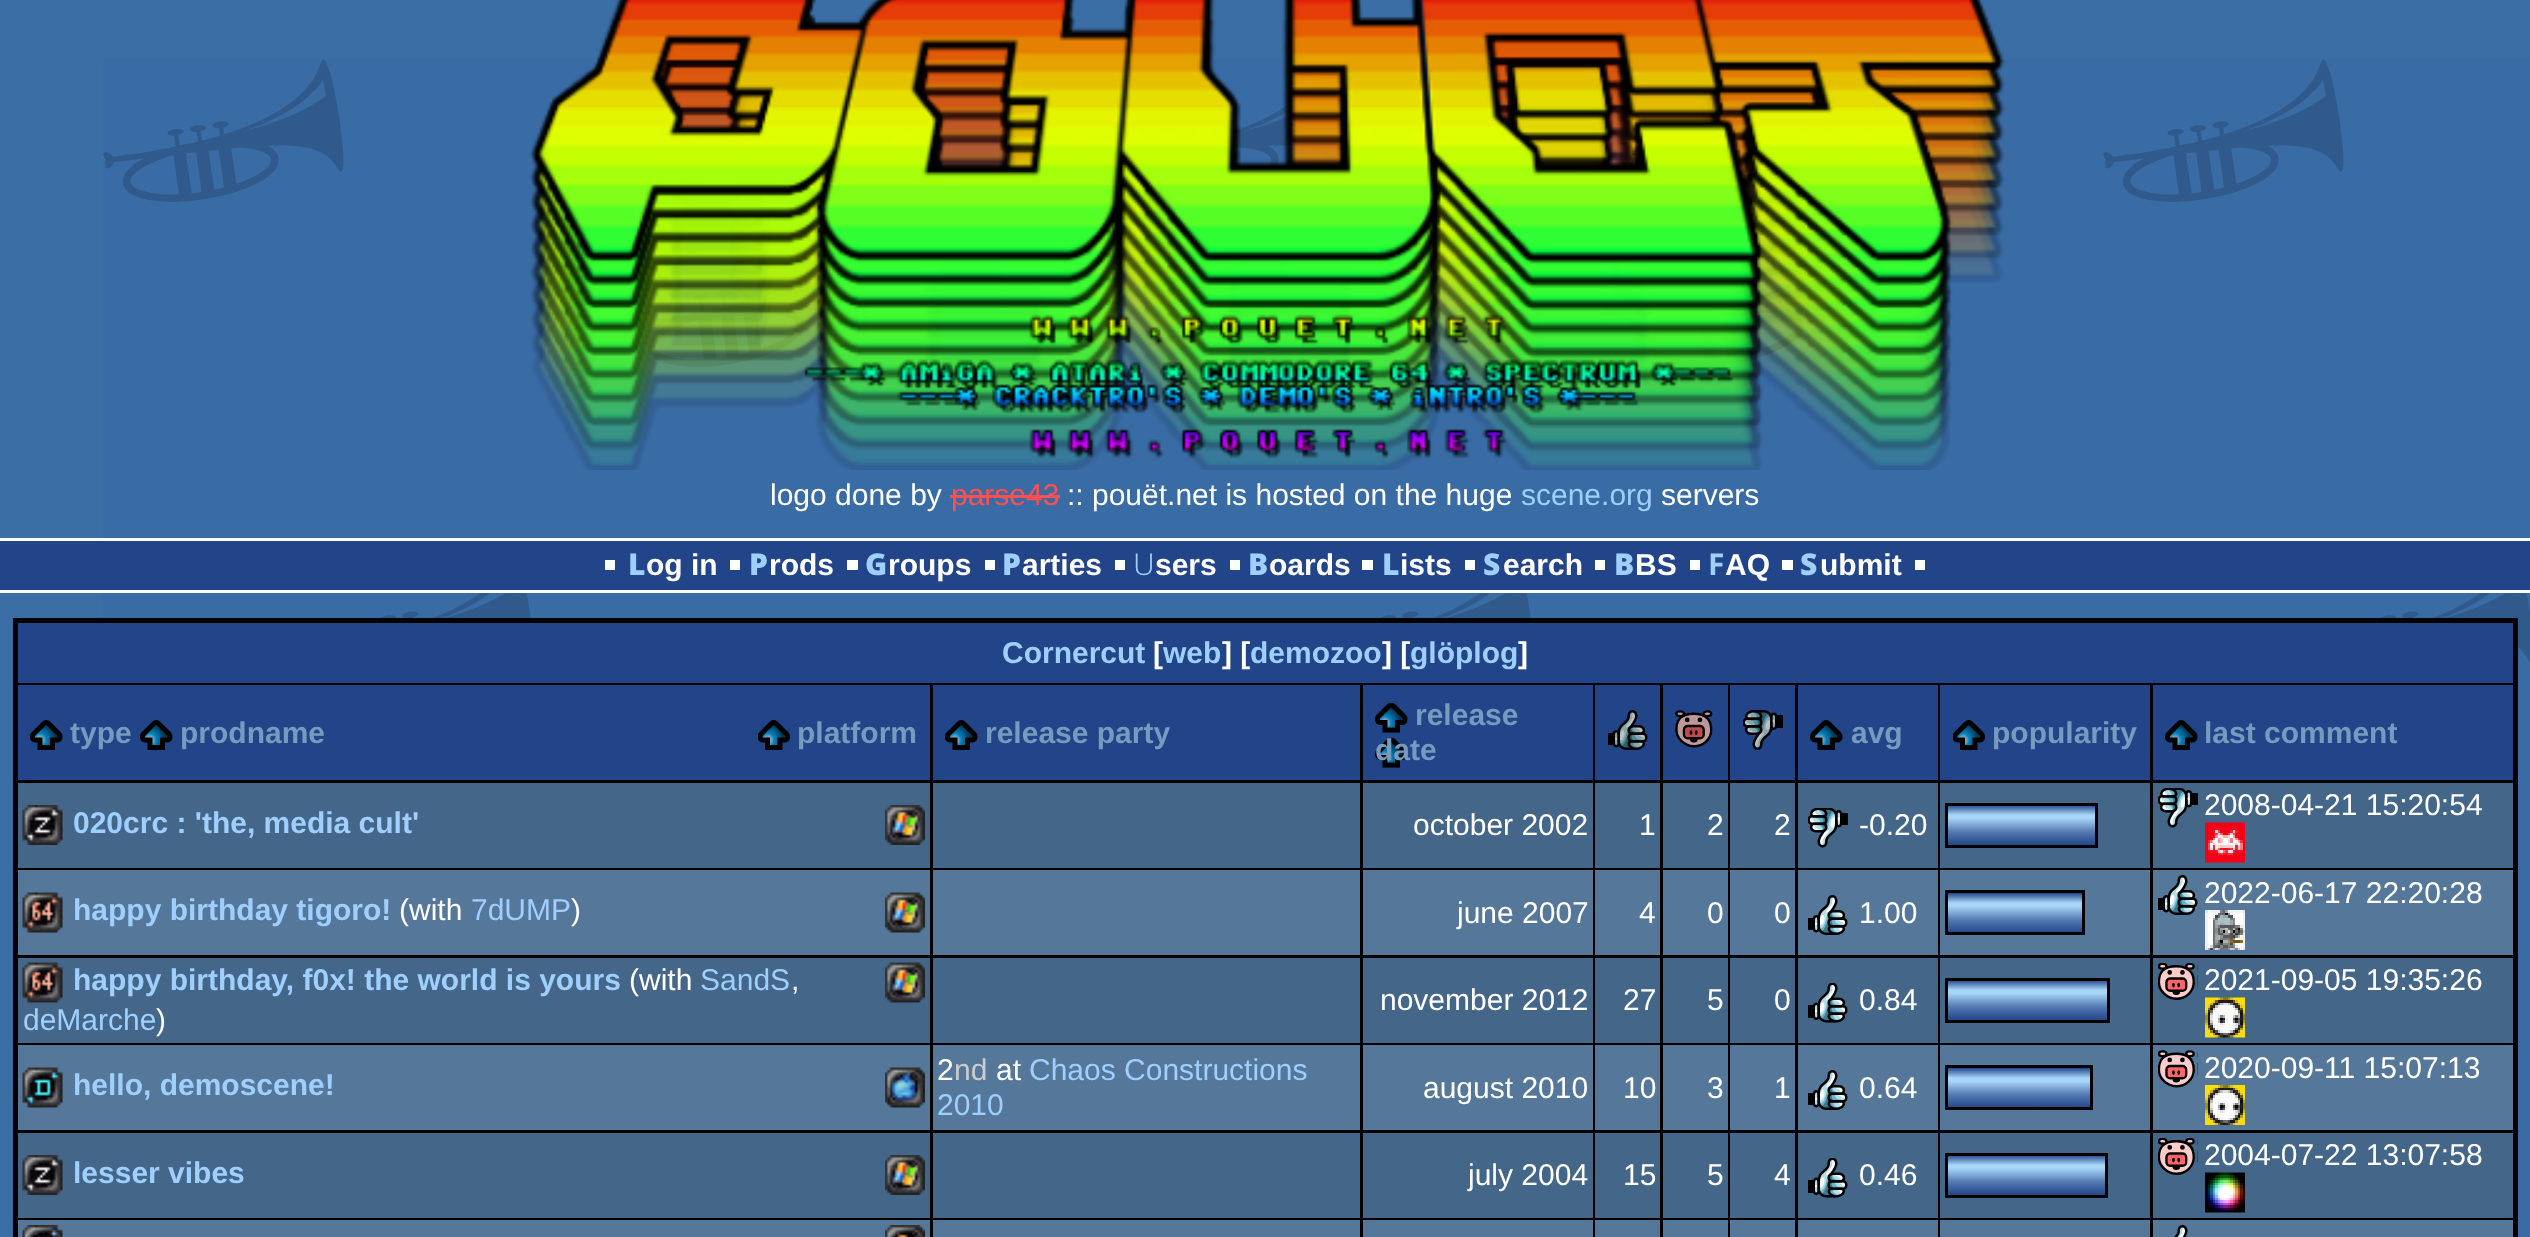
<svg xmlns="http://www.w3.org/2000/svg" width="2530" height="1237">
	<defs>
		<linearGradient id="g1" gradientUnits="userSpaceOnUse" x1="2021" y1="805" x2="2021" y2="845"><stop offset="0" stop-color="#24468A" /><stop offset="0.25" stop-color="#A7D6F8" /><stop offset="0.33" stop-color="#A7D6F8" /><stop offset="0.67" stop-color="#547AB2" /><stop offset="1" stop-color="#24468A" /></linearGradient>
		<linearGradient id="g2" gradientUnits="userSpaceOnUse" x1="2015" y1="893" x2="2015" y2="933"><stop offset="0" stop-color="#24468A" /><stop offset="0.25" stop-color="#A7D6F8" /><stop offset="0.33" stop-color="#A7D6F8" /><stop offset="0.67" stop-color="#547AB2" /><stop offset="1" stop-color="#24468A" /></linearGradient>
		<linearGradient id="g3" gradientUnits="userSpaceOnUse" x1="2028" y1="980" x2="2028" y2="1020"><stop offset="0" stop-color="#24468A" /><stop offset="0.25" stop-color="#A7D6F8" /><stop offset="0.33" stop-color="#A7D6F8" /><stop offset="0.67" stop-color="#547AB2" /><stop offset="1" stop-color="#24468A" /></linearGradient>
		<linearGradient id="g4" gradientUnits="userSpaceOnUse" x1="2019" y1="1068" x2="2019" y2="1108"><stop offset="0" stop-color="#24468A" /><stop offset="0.25" stop-color="#A7D6F8" /><stop offset="0.33" stop-color="#A7D6F8" /><stop offset="0.67" stop-color="#547AB2" /><stop offset="1" stop-color="#24468A" /></linearGradient>
		<linearGradient id="g5" gradientUnits="userSpaceOnUse" x1="2026" y1="1155" x2="2026" y2="1195"><stop offset="0" stop-color="#24468A" /><stop offset="0.25" stop-color="#A7D6F8" /><stop offset="0.33" stop-color="#A7D6F8" /><stop offset="0.67" stop-color="#547AB2" /><stop offset="1" stop-color="#24468A" /></linearGradient>
	</defs>
	<rect width="100%" height="100%" fill="#3A6EA5" />
	<image x="103" y="59" width="2427" height="1178" href="assets/img1.png" />
	<image x="530" y="0" width="1476" height="470" href="assets/img2.png" />
	<text x="770" y="505" font-family="Liberation Sans" font-size="30" fill="#FFFFFF">logo done by</text>
	<text x="951" y="505" font-family="Liberation Sans" font-size="30" fill="#FF4F4F">parse43</text>
	<rect x="950" y="495" width="110" height="3" fill="#FF4F4F" />
	<text x="1067" y="505" font-family="Liberation Sans" font-size="30" fill="#FFFFFF">:: pouët.net is hosted on the huge</text>
	<text x="1521" y="505" font-family="Liberation Sans" font-size="30" fill="#9FCFFF">scene.org</text>
	<text x="1661" y="505" font-family="Liberation Sans" font-size="30" fill="#FFFFFF">servers</text>
	<rect x="0" y="541" width="2530" height="49" fill="#224488" />
	<rect x="0" y="538" width="2530" height="3" fill="#FFFFFF" />
	<rect x="0" y="590" width="2530" height="3" fill="#FFFFFF" />
	<image x="605" y="560" width="135" height="10" href="assets/img3.png" />
	<text x="628" y="575" font-family="Noto Sans" font-size="30" font-weight="900" fill="#9FCFFF">L</text>
	<text x="646" y="575" font-family="Liberation Sans" font-size="30" font-weight="700" fill="#FFFFFF">og in</text>
	<rect x="847" y="560" width="11" height="10" fill="#FCFEFC" />
	<text x="749" y="575" font-family="Noto Sans" font-size="30" font-weight="900" fill="#9FCFFF">P</text>
	<text x="769" y="575" font-family="Liberation Sans" font-size="30" font-weight="700" fill="#FFFFFF">rods</text>
	<rect x="985" y="560" width="10" height="10" fill="#FCFEFC" />
	<text x="865" y="575" font-family="Noto Sans" font-size="30" font-weight="900" fill="#9FCFFF">G</text>
	<text x="888" y="575" font-family="Liberation Sans" font-size="30" font-weight="700" fill="#FFFFFF">roups</text>
	<rect x="1115" y="560" width="10" height="10" fill="#FCFEFC" />
	<text x="1002" y="575" font-family="Noto Sans" font-size="30" font-weight="900" fill="#9FCFFF">P</text>
	<text x="1022" y="575" font-family="Liberation Sans" font-size="30" font-weight="700" fill="#FFFFFF">arties</text>
	<rect x="1230" y="560" width="10" height="10" fill="#FCFEFC" />
	<text x="1133" y="575" font-family="Noto Sans" font-size="30" font-weight="300" fill="#9FCFFF">U</text>
	<text x="1155" y="575" font-family="Liberation Sans" font-size="30" font-weight="700" fill="#FFFFFF">sers</text>
	<rect x="1362" y="560" width="11" height="10" fill="#FCFEFC" />
	<text x="1248" y="575" font-family="Noto Sans" font-size="30" font-weight="900" fill="#9FCFFF">B</text>
	<text x="1269" y="575" font-family="Liberation Sans" font-size="30" font-weight="700" fill="#FFFFFF">oards</text>
	<rect x="1465" y="560" width="10" height="10" fill="#FCFEFC" />
	<text x="1382" y="575" font-family="Noto Sans" font-size="30" font-weight="900" fill="#9FCFFF">L</text>
	<text x="1400" y="575" font-family="Liberation Sans" font-size="30" font-weight="700" fill="#FFFFFF">ists</text>
	<rect x="1595" y="560" width="10" height="10" fill="#FCFEFC" />
	<text x="1483" y="575" font-family="Noto Sans" font-size="30" font-weight="900" fill="#9FCFFF">S</text>
	<text x="1503" y="575" font-family="Liberation Sans" font-size="30" font-weight="700" fill="#FFFFFF">earch</text>
	<rect x="1690" y="560" width="10" height="10" fill="#FCFEFC" />
	<text x="1614" y="575" font-family="Noto Sans" font-size="30" font-weight="900" fill="#9FCFFF">B</text>
	<text x="1635" y="575" font-family="Liberation Sans" font-size="30" font-weight="700" fill="#FFFFFF">BS</text>
	<rect x="1782" y="560" width="11" height="10" fill="#FCFEFC" />
	<text x="1708" y="575" font-family="Noto Sans" font-size="30" font-weight="700" fill="#9FCFFF">F</text>
	<text x="1725" y="575" font-family="Liberation Sans" font-size="30" font-weight="700" fill="#FFFFFF">AQ</text>
	<rect x="1915" y="560" width="10" height="10" fill="#FCFEFC" />
	<text x="1800" y="575" font-family="Noto Sans" font-size="30" font-weight="900" fill="#9FCFFF">S</text>
	<text x="1820" y="575" font-family="Liberation Sans" font-size="30" font-weight="700" fill="#FFFFFF">ubmit</text>
	<rect x="13" y="618" width="2505" height="619" fill="#000000" />
	<rect x="18" y="623" width="2495" height="60" fill="#224488" />
	<text x="1002" y="663" font-family="Liberation Sans" font-size="30" font-weight="700" fill="#9FCFFF">Cornercut</text>
	<text x="1153" y="663" font-family="Liberation Sans" font-size="30" font-weight="700" fill="#FFFFFF">[</text>
	<text x="1163" y="663" font-family="Liberation Sans" font-size="30" font-weight="700" fill="#9FCFFF">web</text>
	<text x="1222" y="663" font-family="Liberation Sans" font-size="30" font-weight="700" fill="#FFFFFF">] [</text>
	<text x="1250" y="663" font-family="Liberation Sans" font-size="30" font-weight="700" fill="#9FCFFF">demozoo</text>
	<text x="1382" y="663" font-family="Liberation Sans" font-size="30" font-weight="700" fill="#FFFFFF">] [</text>
	<text x="1410" y="663" font-family="Liberation Sans" font-size="30" font-weight="700" fill="#9FCFFF">glöplog</text>
	<text x="1518" y="663" font-family="Liberation Sans" font-size="30" font-weight="700" fill="#FFFFFF">]</text>
	<rect x="18" y="685" width="912" height="95" fill="#224488" />
	<image x="30" y="720" width="33" height="30" href="assets/img4.png" />
	<text x="70" y="743" font-family="Liberation Sans" font-size="30" font-weight="700" fill="#779BBF">type</text>
	<image x="140" y="720" width="33" height="30" href="assets/img4.png" />
	<text x="180" y="743" font-family="Liberation Sans" font-size="30" font-weight="700" fill="#779BBF">prodname</text>
	<image x="758" y="720" width="32" height="30" href="assets/img5.png" />
	<text x="797" y="743" font-family="Liberation Sans" font-size="30" font-weight="700" fill="#779BBF">platform</text>
	<rect x="933" y="685" width="427" height="95" fill="#224488" />
	<image x="945" y="720" width="33" height="30" href="assets/img4.png" />
	<text x="985" y="743" font-family="Liberation Sans" font-size="30" font-weight="700" fill="#779BBF">release party</text>
	<rect x="1363" y="685" width="230" height="95" fill="#224488" />
	<image x="1375" y="703" width="33" height="65" href="assets/img6.png" />
	<g font-family="Liberation Sans" font-size="30" font-weight="700" fill="#779BBF">
		<text x="1415" y="725">release</text>
		<text x="1375" y="760">date</text>
	</g>
	<rect x="1595" y="685" width="65" height="95" fill="#224488" />
	<image x="1608" y="710" width="40" height="40" href="assets/img7.png" />
	<rect x="1663" y="685" width="65" height="95" fill="#224488" />
	<image x="1675" y="710" width="38" height="38" href="assets/img8.png" />
	<rect x="1730" y="685" width="65" height="95" fill="#224488" />
	<image x="1743" y="710" width="40" height="40" href="assets/img9.png" />
	<rect x="1798" y="685" width="140" height="95" fill="#224488" />
	<image x="1810" y="720" width="33" height="30" href="assets/img4.png" />
	<text x="1851" y="743" font-family="Liberation Sans" font-size="30" font-weight="700" fill="#779BBF">avg</text>
	<rect x="1940" y="685" width="210" height="95" fill="#224488" />
	<image x="1953" y="720" width="32" height="30" href="assets/img5.png" />
	<text x="1992" y="743" font-family="Liberation Sans" font-size="30" font-weight="700" fill="#779BBF">popularity</text>
	<rect x="2153" y="685" width="360" height="95" fill="#224488" />
	<image x="2165" y="720" width="33" height="30" href="assets/img4.png" />
	<text x="2204" y="743" font-family="Liberation Sans" font-size="30" font-weight="700" fill="#779BBF">last comment</text>
	<rect x="933" y="783" width="427" height="85" fill="#446688" />
	<rect x="1940" y="783" width="210" height="85" fill="#446688" />
	<rect x="1948" y="806" width="147" height="39" fill="url(#g1)" />
	<rect x="1946.5" y="804.5" width="150" height="42" fill="none" stroke="#000000" stroke-width="3" />
	<rect x="2153" y="783" width="360" height="85" fill="#446688" />
	<image x="2158" y="788" width="40" height="40" href="assets/img10.png" />
	<text x="2204" y="815" font-family="Liberation Sans" font-size="30" fill="#FFFFFF">2008-04-21 15:20:54</text>
	<image x="2205" y="822" width="40" height="41" href="assets/img11.png" />
	<rect x="18" y="783" width="912" height="85" fill="#446688" />
	<image x="22" y="805" width="41" height="40" href="assets/img12.png" />
	<text x="73" y="833" font-family="Liberation Sans" font-size="30" font-weight="700" fill="#9FCFFF">020crc : 'the, media cult'</text>
	<image x="885" y="805" width="40" height="40" href="assets/img13.png" />
	<rect x="1363" y="783" width="230" height="85" fill="#446688" />
	<text x="1413" y="835" font-family="Liberation Sans" font-size="30" fill="#FFFFFF">october 2002</text>
	<rect x="1595" y="783" width="65" height="85" fill="#446688" />
	<text x="1639" y="835" font-family="Liberation Sans" font-size="30" fill="#FFFFFF">1</text>
	<rect x="1663" y="783" width="65" height="85" fill="#446688" />
	<text x="1707" y="835" font-family="Liberation Sans" font-size="30" fill="#FFFFFF">2</text>
	<rect x="1730" y="783" width="65" height="85" fill="#446688" />
	<text x="1774" y="835" font-family="Liberation Sans" font-size="30" fill="#FFFFFF">2</text>
	<rect x="1798" y="783" width="140" height="85" fill="#446688" />
	<image x="1808" y="808" width="40" height="40" href="assets/img10.png" />
	<text x="1859" y="835" font-family="Liberation Sans" font-size="30" fill="#FFFFFF">-0.20</text>
	<rect x="933" y="870" width="427" height="85" fill="#557799" />
	<rect x="1940" y="870" width="210" height="85" fill="#557799" />
	<rect x="1948" y="893" width="134" height="39" fill="url(#g2)" />
	<rect x="1946.5" y="891.5" width="137" height="42" fill="none" stroke="#000000" stroke-width="3" />
	<rect x="2153" y="870" width="360" height="85" fill="#557799" />
	<image x="2158" y="875" width="40" height="40" href="assets/img14.png" />
	<text x="2204" y="903" font-family="Liberation Sans" font-size="30" fill="#FFFFFF">2022-06-17 22:20:28</text>
	<image x="2205" y="910" width="40" height="40" href="assets/img15.png" />
	<rect x="18" y="870" width="912" height="85" fill="#557799" />
	<image x="22" y="892" width="41" height="41" href="assets/img16.png" />
	<text x="73" y="920" font-family="Liberation Sans" font-size="30" font-weight="700" fill="#9FCFFF">happy birthday tigoro!</text>
	<text x="399" y="920" font-family="Liberation Sans" font-size="30" fill="#FFFFFF">(with</text>
	<text x="471" y="920" font-family="Liberation Sans" font-size="30" fill="#9FCFFF">7dUMP</text>
	<text x="571" y="920" font-family="Liberation Sans" font-size="30" fill="#FFFFFF">)</text>
	<image x="885" y="892" width="40" height="41" href="assets/img17.png" />
	<rect x="1363" y="870" width="230" height="85" fill="#557799" />
	<text x="1457" y="923" font-family="Liberation Sans" font-size="30" fill="#FFFFFF">june 2007</text>
	<rect x="1595" y="870" width="65" height="85" fill="#557799" />
	<text x="1639" y="923" font-family="Liberation Sans" font-size="30" fill="#FFFFFF">4</text>
	<rect x="1663" y="870" width="65" height="85" fill="#557799" />
	<text x="1707" y="923" font-family="Liberation Sans" font-size="30" fill="#FFFFFF">0</text>
	<rect x="1730" y="870" width="65" height="85" fill="#557799" />
	<text x="1774" y="923" font-family="Liberation Sans" font-size="30" fill="#FFFFFF">0</text>
	<rect x="1798" y="870" width="140" height="85" fill="#557799" />
	<image x="1808" y="895" width="40" height="40" href="assets/img14.png" />
	<text x="1859" y="923" font-family="Liberation Sans" font-size="30" fill="#FFFFFF">1.00</text>
	<rect x="18" y="958" width="912" height="85" fill="#446688" />
	<image x="22" y="962" width="41" height="41" href="assets/img18.png" />
	<text x="73" y="990" font-family="Liberation Sans" font-size="30" font-weight="700" fill="#9FCFFF">happy birthday, f0x! the world is yours</text>
	<text x="629" y="990" font-family="Liberation Sans" font-size="30" fill="#FFFFFF">(with</text>
	<text x="700" y="990" font-family="Liberation Sans" font-size="30" fill="#9FCFFF">SandS</text>
	<text x="791" y="990" font-family="Liberation Sans" font-size="30" fill="#FFFFFF">,</text>
	<image x="885" y="962" width="40" height="41" href="assets/img19.png" />
	<text x="23" y="1030" font-family="Liberation Sans" font-size="30" fill="#9FCFFF">deMarche</text>
	<text x="156" y="1030" font-family="Liberation Sans" font-size="30" fill="#FFFFFF">)</text>
	<rect x="933" y="958" width="427" height="85" fill="#446688" />
	<rect x="1940" y="958" width="210" height="85" fill="#446688" />
	<rect x="1948" y="981" width="159" height="39" fill="url(#g3)" />
	<rect x="1946.5" y="979.5" width="162" height="42" fill="none" stroke="#000000" stroke-width="3" />
	<rect x="2153" y="958" width="360" height="85" fill="#446688" />
	<image x="2158" y="963" width="40" height="37" href="assets/img20.png" />
	<text x="2204" y="990" font-family="Liberation Sans" font-size="30" fill="#FFFFFF">2021-09-05 19:35:26</text>
	<image x="2205" y="997" width="40" height="41" href="assets/img21.png" />
	<rect x="1363" y="958" width="230" height="85" fill="#446688" />
	<text x="1380" y="1010" font-family="Liberation Sans" font-size="30" fill="#FFFFFF">november 2012</text>
	<rect x="1595" y="958" width="65" height="85" fill="#446688" />
	<text x="1623" y="1010" font-family="Liberation Sans" font-size="30" fill="#FFFFFF">27</text>
	<rect x="1663" y="958" width="65" height="85" fill="#446688" />
	<text x="1707" y="1010" font-family="Liberation Sans" font-size="30" fill="#FFFFFF">5</text>
	<rect x="1730" y="958" width="65" height="85" fill="#446688" />
	<text x="1774" y="1010" font-family="Liberation Sans" font-size="30" fill="#FFFFFF">0</text>
	<rect x="1798" y="958" width="140" height="85" fill="#446688" />
	<image x="1808" y="983" width="40" height="40" href="assets/img22.png" />
	<text x="1859" y="1010" font-family="Liberation Sans" font-size="30" fill="#FFFFFF">0.84</text>
	<rect x="18" y="1045" width="912" height="85" fill="#557799" />
	<image x="22" y="1067" width="41" height="41" href="assets/img23.png" />
	<text x="73" y="1095" font-family="Liberation Sans" font-size="30" font-weight="700" fill="#9FCFFF">hello, demoscene!</text>
	<image x="885" y="1067" width="40" height="41" href="assets/img24.png" />
	<rect x="933" y="1045" width="427" height="85" fill="#557799" />
	<text x="937" y="1080" font-family="Liberation Sans" font-size="30" fill="#FFFFFF">2</text>
	<text x="954" y="1080" font-family="Liberation Sans" font-size="30" fill="#CCCCCC">nd</text>
	<text x="996" y="1080" font-family="Liberation Sans" font-size="30" fill="#FFFFFF">at</text>
	<g font-family="Liberation Sans" font-size="30" fill="#9FCFFF">
		<text x="1029" y="1080">Chaos Constructions</text>
		<text x="937" y="1115">2010</text>
	</g>
	<rect x="1363" y="1045" width="230" height="85" fill="#557799" />
	<text x="1423" y="1098" font-family="Liberation Sans" font-size="30" fill="#FFFFFF">august 2010</text>
	<rect x="1595" y="1045" width="65" height="85" fill="#557799" />
	<text x="1623" y="1098" font-family="Liberation Sans" font-size="30" fill="#FFFFFF">10</text>
	<rect x="1663" y="1045" width="65" height="85" fill="#557799" />
	<text x="1707" y="1098" font-family="Liberation Sans" font-size="30" fill="#FFFFFF">3</text>
	<rect x="1730" y="1045" width="65" height="85" fill="#557799" />
	<text x="1774" y="1098" font-family="Liberation Sans" font-size="30" fill="#FFFFFF">1</text>
	<rect x="1798" y="1045" width="140" height="85" fill="#557799" />
	<image x="1808" y="1070" width="40" height="40" href="assets/img14.png" />
	<text x="1859" y="1098" font-family="Liberation Sans" font-size="30" fill="#FFFFFF">0.64</text>
	<rect x="1940" y="1045" width="210" height="85" fill="#557799" />
	<rect x="1948" y="1068" width="142" height="39" fill="url(#g4)" />
	<rect x="1946.5" y="1066.5" width="145" height="42" fill="none" stroke="#000000" stroke-width="3" />
	<rect x="2153" y="1045" width="360" height="85" fill="#557799" />
	<image x="2158" y="1050" width="40" height="38" href="assets/img25.png" />
	<text x="2204" y="1078" font-family="Liberation Sans" font-size="30" fill="#FFFFFF">2020-09-11 15:07:13</text>
	<image x="2205" y="1085" width="40" height="40" href="assets/img26.png" />
	<rect x="933" y="1133" width="427" height="85" fill="#446688" />
	<rect x="1940" y="1133" width="210" height="85" fill="#446688" />
	<rect x="1948" y="1156" width="157" height="39" fill="url(#g5)" />
	<rect x="1946.5" y="1154.5" width="160" height="42" fill="none" stroke="#000000" stroke-width="3" />
	<rect x="2153" y="1133" width="360" height="85" fill="#446688" />
	<image x="2158" y="1138" width="40" height="37" href="assets/img27.png" />
	<text x="2204" y="1165" font-family="Liberation Sans" font-size="30" fill="#FFFFFF">2004-07-22 13:07:58</text>
	<image x="2205" y="1172" width="40" height="41" href="assets/img28.png" />
	<rect x="18" y="1133" width="912" height="85" fill="#446688" />
	<image x="22" y="1155" width="41" height="40" href="assets/img12.png" />
	<text x="73" y="1183" font-family="Liberation Sans" font-size="30" font-weight="700" fill="#9FCFFF">lesser vibes</text>
	<image x="885" y="1155" width="40" height="40" href="assets/img13.png" />
	<rect x="1363" y="1133" width="230" height="85" fill="#446688" />
	<text x="1468" y="1185" font-family="Liberation Sans" font-size="30" fill="#FFFFFF">july 2004</text>
	<rect x="1595" y="1133" width="65" height="85" fill="#446688" />
	<text x="1623" y="1185" font-family="Liberation Sans" font-size="30" fill="#FFFFFF">15</text>
	<rect x="1663" y="1133" width="65" height="85" fill="#446688" />
	<text x="1707" y="1185" font-family="Liberation Sans" font-size="30" fill="#FFFFFF">5</text>
	<rect x="1730" y="1133" width="65" height="85" fill="#446688" />
	<text x="1774" y="1185" font-family="Liberation Sans" font-size="30" fill="#FFFFFF">4</text>
	<rect x="1798" y="1133" width="140" height="85" fill="#446688" />
	<image x="1808" y="1158" width="40" height="40" href="assets/img22.png" />
	<text x="1859" y="1185" font-family="Liberation Sans" font-size="30" fill="#FFFFFF">0.46</text>
	<rect x="18" y="1220" width="912" height="17" fill="#557799" />
	<image x="22" y="1225" width="41" height="12" href="assets/img29.png" />
	<image x="885" y="1225" width="40" height="12" href="assets/img30.png" />
	<rect x="933" y="1220" width="427" height="17" fill="#557799" />
	<rect x="1363" y="1220" width="230" height="17" fill="#557799" />
	<rect x="1595" y="1220" width="65" height="17" fill="#557799" />
	<rect x="1663" y="1220" width="65" height="17" fill="#557799" />
	<rect x="1730" y="1220" width="65" height="17" fill="#557799" />
	<rect x="1798" y="1220" width="140" height="17" fill="#557799" />
	<rect x="1940" y="1220" width="210" height="17" fill="#557799" />
	<rect x="2153" y="1220" width="360" height="17" fill="#557799" />
	<image x="2174" y="1225" width="14" height="12" href="assets/img31.png" />
</svg>
